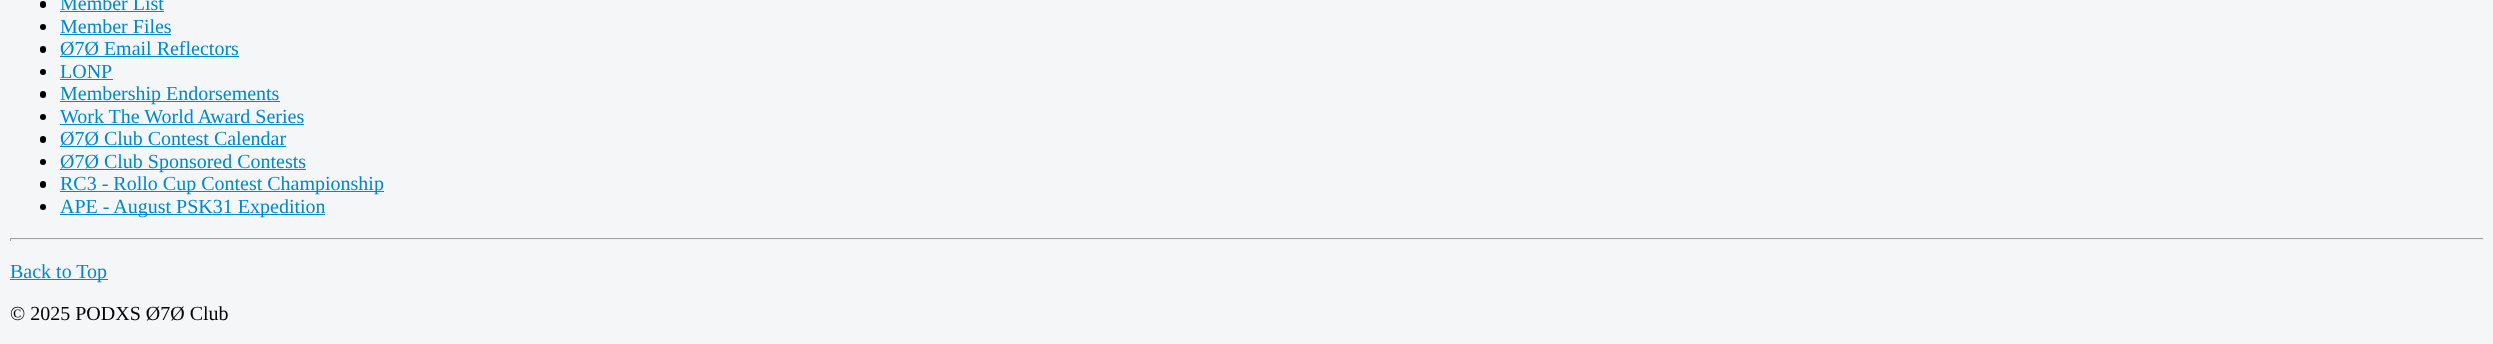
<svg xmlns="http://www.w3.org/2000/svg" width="2493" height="344">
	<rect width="100%" height="100%" fill="#F4F6F7" />
	<rect x="40" y="1" width="6" height="7" rx="3" fill="#000000" />
	<text x="60" y="10" font-family="Liberation Serif" font-size="20" fill="#0088CC">Member List</text>
	<rect x="60" y="11" width="104" height="1" fill="#0088CC" />
	<circle cx="43" cy="27" r="3" fill="#000000" />
	<text x="60" y="33" font-family="Liberation Serif" font-size="20" fill="#0088CC">Member Files</text>
	<rect x="60" y="34" width="111" height="1" fill="#0088CC" />
	<rect x="40" y="46" width="6" height="7" rx="3" fill="#000000" />
	<text x="60" y="55" font-family="Liberation Serif" font-size="20" fill="#0088CC">Ø7Ø Email Reflectors</text>
	<rect x="60" y="56" width="179" height="1" fill="#0088CC" />
	<circle cx="43" cy="72" r="3" fill="#000000" />
	<text x="60" y="78" font-family="Liberation Serif" font-size="20" fill="#0088CC">LONP</text>
	<rect x="60" y="79" width="53" height="1" fill="#0088CC" />
	<rect x="40" y="91" width="6" height="7" rx="3" fill="#000000" />
	<rect x="60" y="101" width="220" height="1" fill="#0088CC" />
	<text x="60" y="100" font-family="Liberation Serif" font-size="20" fill="#0088CC">Membership Endorsements</text>
	<circle cx="43" cy="117" r="3" fill="#000000" />
	<text x="60" y="123" font-family="Liberation Serif" font-size="20" fill="#0088CC">Work The World Award Series</text>
	<rect x="60" y="124" width="244" height="1" fill="#0088CC" />
	<rect x="40" y="136" width="6" height="7" rx="3" fill="#000000" />
	<text x="60" y="145" font-family="Liberation Serif" font-size="20" fill="#0088CC">Ø7Ø Club Contest Calendar</text>
	<rect x="60" y="146" width="226" height="1" fill="#0088CC" />
	<circle cx="43" cy="162" r="3" fill="#000000" />
	<rect x="60" y="169" width="246" height="1" fill="#0088CC" />
	<text x="60" y="168" font-family="Liberation Serif" font-size="20" fill="#0088CC">Ø7Ø Club Sponsored Contests</text>
	<rect x="40" y="181" width="6" height="7" rx="3" fill="#000000" />
	<rect x="60" y="191" width="324" height="1" fill="#0088CC" />
	<text x="60" y="190" font-family="Liberation Serif" font-size="20" fill="#0088CC">RC3 - Rollo Cup Contest Championship</text>
	<circle cx="43" cy="207" r="3" fill="#000000" />
	<rect x="60" y="214" width="265" height="1" fill="#0088CC" />
	<text x="60" y="213" font-family="Liberation Serif" font-size="20" fill="#0088CC">APE - August PSK31 Expedition</text>
	<rect x="10" y="238" width="2474" height="1" fill="#9F9F9F" />
	<rect x="2483" y="238" width="1" height="3" fill="#EEEEEE" />
	<rect x="10" y="239" width="2474" height="1" fill="#EEEEEE" />
	<rect x="10" y="238" width="1" height="3" fill="#9F9F9F" />
	<rect x="10" y="279" width="98" height="1" fill="#0088CC" />
	<text x="10" y="278" font-family="Liberation Serif" font-size="20" fill="#0088CC">Back to Top</text>
	<text x="10" y="320" font-family="Liberation Serif" font-size="20" fill="#000000">© 2025 PODXS Ø7Ø Club</text>
</svg>
